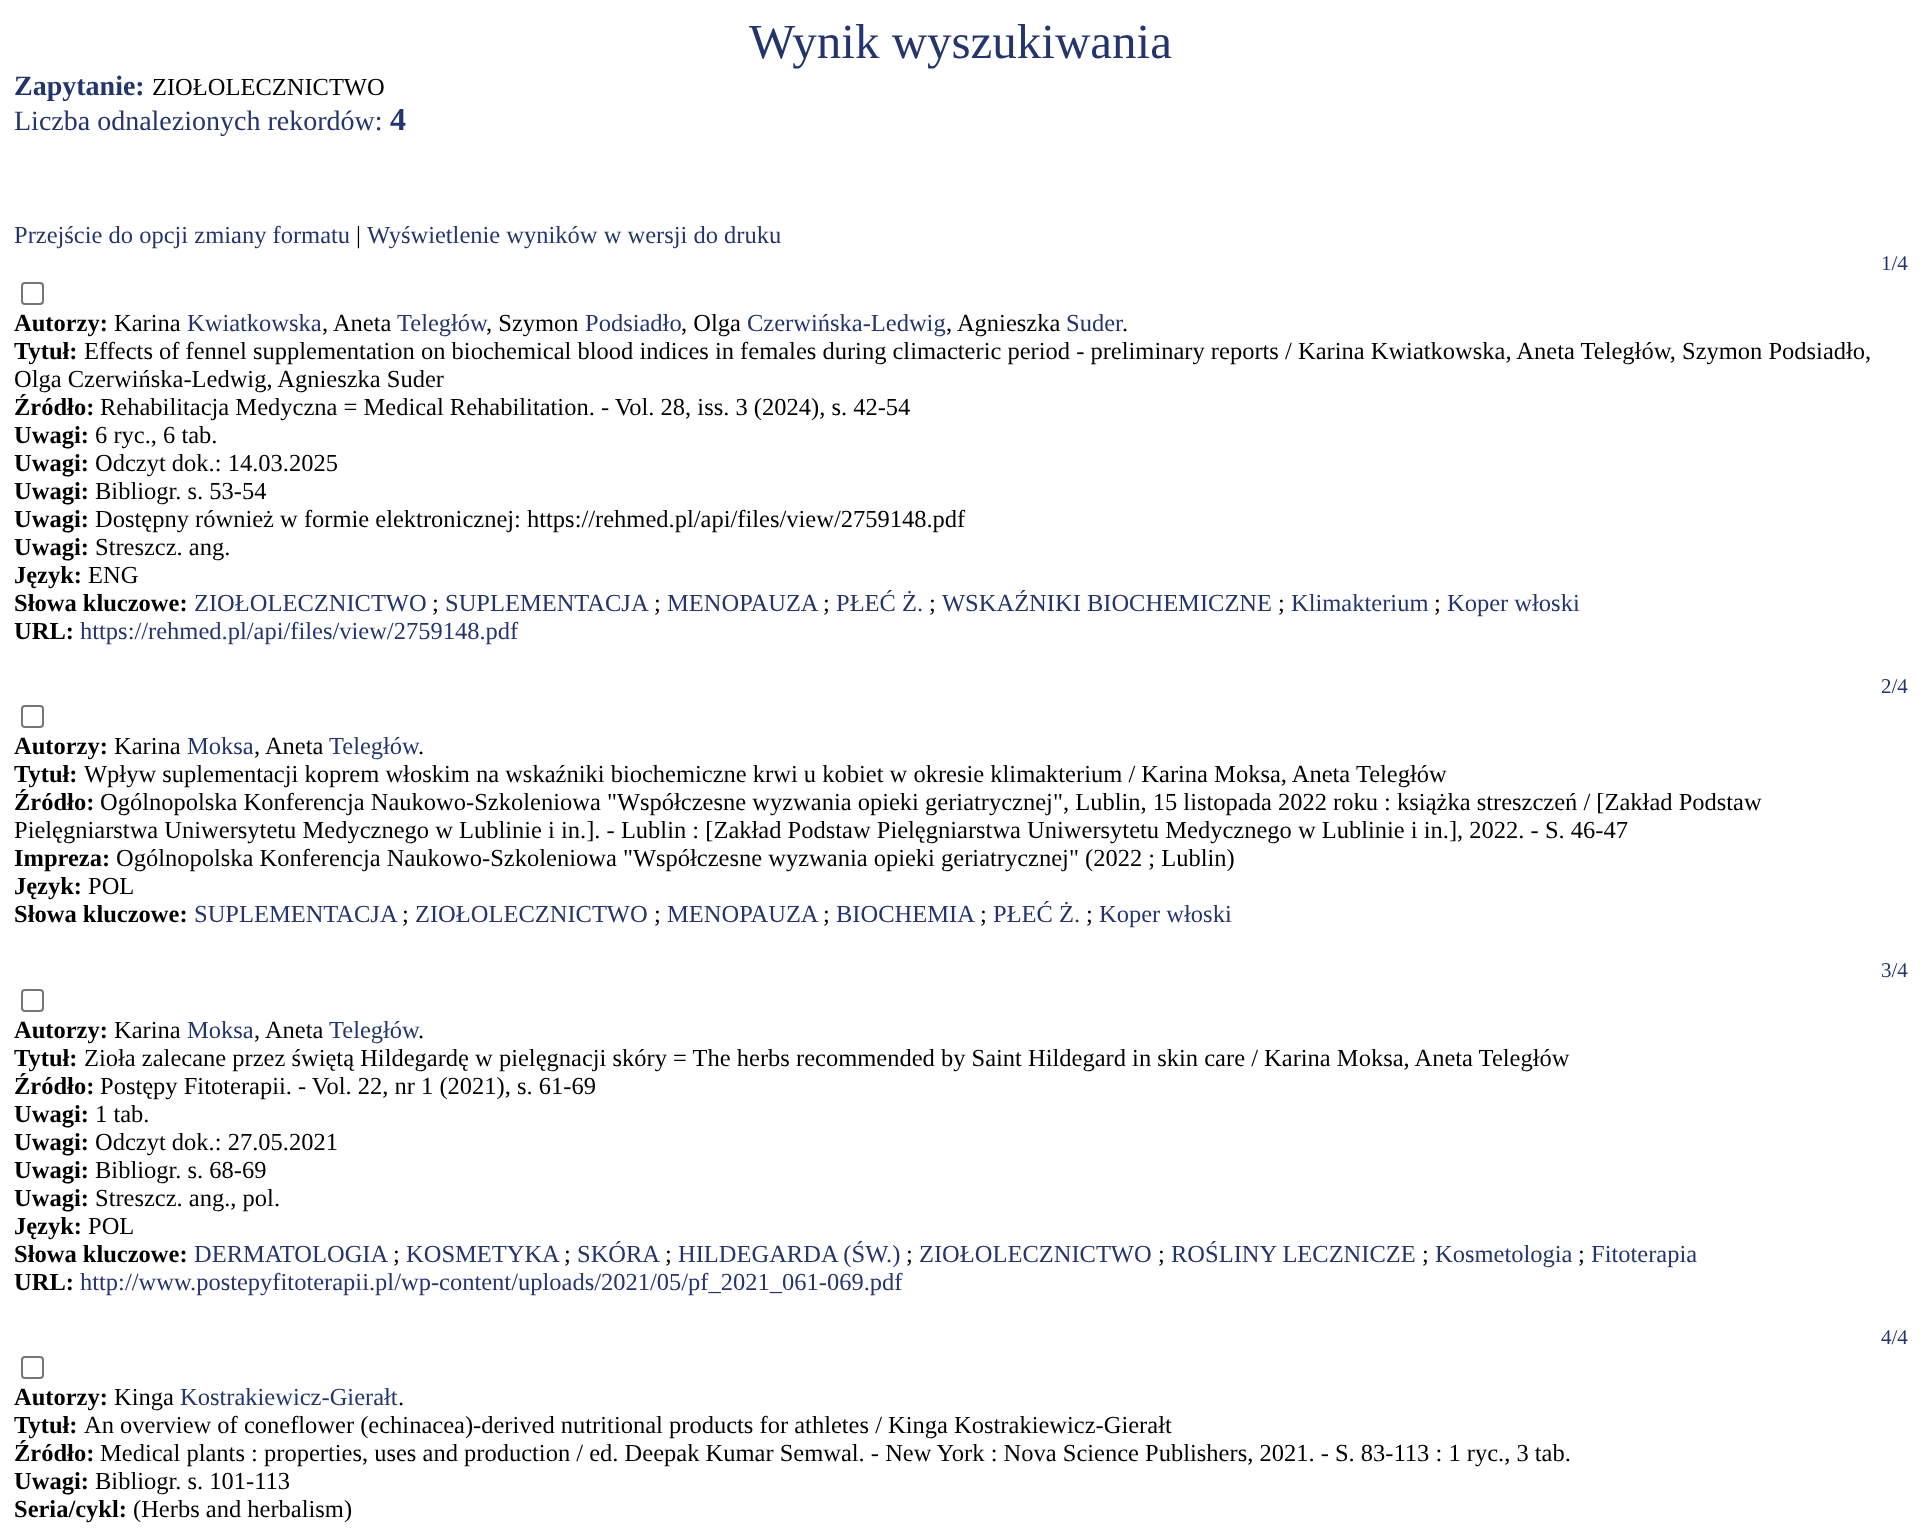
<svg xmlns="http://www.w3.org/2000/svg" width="1920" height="1536">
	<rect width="100%" height="100%" fill="#FFFFFF" />
	<text x="749" y="58" font-family="Liberation Serif" font-size="49" fill="#24356D">Wynik wyszukiwania</text>
	<text x="14" y="95" font-family="Liberation Serif" font-size="28" font-weight="700" fill="#24356D">Zapytanie:</text>
	<text x="152" y="95" font-family="Liberation Serif" font-size="24.5" fill="#000000">ZIOŁOLECZNICTWO</text>
	<text x="14" y="130" font-family="Liberation Serif" font-size="28" fill="#24356D">Liczba odnalezionych rekordów:</text>
	<text x="390" y="130" font-family="Liberation Serif" font-size="32" font-weight="700" fill="#24356D">4</text>
	<text x="14" y="243" font-family="Liberation Serif" font-size="24.5" fill="#24356D">Przejście do opcji zmiany formatu</text>
	<text x="356" y="243" font-family="Liberation Serif" font-size="24.5" fill="#000000">|</text>
	<text x="367" y="243" font-family="Liberation Serif" font-size="24.5" fill="#24356D">Wyświetlenie wyników w wersji do druku</text>
	<text x="1881" y="270" font-family="Liberation Serif" font-size="21" fill="#24356D">1/4</text>
	<rect x="22" y="283" width="21" height="21" rx="3" fill="none" stroke="#767676" stroke-width="2" />
	<text x="14" y="331" font-family="Liberation Serif" font-size="24.5" font-weight="700" fill="#000000">Autorzy:</text>
	<text x="114" y="331" font-family="Liberation Serif" font-size="24.5" fill="#000000">Karina</text>
	<text x="187" y="331" font-family="Liberation Serif" font-size="24.5" fill="#24356D">Kwiatkowska</text>
	<text x="322" y="331" font-family="Liberation Serif" font-size="24.5" fill="#000000">, Aneta</text>
	<text x="397" y="331" font-family="Liberation Serif" font-size="24.5" fill="#24356D">Teległów</text>
	<text x="486" y="331" font-family="Liberation Serif" font-size="24.5" fill="#000000">, Szymon</text>
	<text x="585" y="331" font-family="Liberation Serif" font-size="24.5" fill="#24356D">Podsiadło</text>
	<text x="681" y="331" font-family="Liberation Serif" font-size="24.5" fill="#000000">, Olga</text>
	<text x="747" y="331" font-family="Liberation Serif" font-size="24.5" fill="#24356D">Czerwińska-Ledwig</text>
	<text x="946" y="331" font-family="Liberation Serif" font-size="24.5" fill="#000000">, Agnieszka</text>
	<text x="1066" y="331" font-family="Liberation Serif" font-size="24.5" fill="#24356D">Suder</text>
	<text x="1122" y="331" font-family="Liberation Serif" font-size="24.5" fill="#000000">.</text>
	<text x="14" y="359" font-family="Liberation Serif" font-size="24.5" font-weight="700" fill="#000000">Tytuł:</text>
	<g font-family="Liberation Serif" font-size="24.5" fill="#000000">
		<text x="84" y="359">Effects of fennel supplementation on biochemical blood indices in females during climacteric period - preliminary reports / Karina Kwiatkowska, Aneta Teległów, Szymon Podsiadło,</text>
		<text x="14" y="387">Olga Czerwińska-Ledwig, Agnieszka Suder</text>
	</g>
	<text x="14" y="415" font-family="Liberation Serif" font-size="24.5" font-weight="700" fill="#000000">Źródło:</text>
	<text x="100" y="415" font-family="Liberation Serif" font-size="24.5" fill="#000000">Rehabilitacja Medyczna = Medical Rehabilitation. - Vol. 28, iss. 3 (2024), s. 42-54</text>
	<text x="14" y="443" font-family="Liberation Serif" font-size="24.5" font-weight="700" fill="#000000">Uwagi:</text>
	<text x="95" y="443" font-family="Liberation Serif" font-size="24.5" fill="#000000">6 ryc., 6 tab.</text>
	<text x="14" y="471" font-family="Liberation Serif" font-size="24.5" font-weight="700" fill="#000000">Uwagi:</text>
	<text x="95" y="471" font-family="Liberation Serif" font-size="24.5" fill="#000000">Odczyt dok.: 14.03.2025</text>
	<text x="14" y="499" font-family="Liberation Serif" font-size="24.5" font-weight="700" fill="#000000">Uwagi:</text>
	<text x="95" y="499" font-family="Liberation Serif" font-size="24.5" fill="#000000">Bibliogr. s. 53-54</text>
	<text x="14" y="527" font-family="Liberation Serif" font-size="24.5" font-weight="700" fill="#000000">Uwagi:</text>
	<text x="95" y="527" font-family="Liberation Serif" font-size="24.5" fill="#000000">Dostępny również w formie elektronicznej: https://rehmed.pl/api/files/view/2759148.pdf</text>
	<text x="14" y="555" font-family="Liberation Serif" font-size="24.5" font-weight="700" fill="#000000">Uwagi:</text>
	<text x="95" y="555" font-family="Liberation Serif" font-size="24.5" fill="#000000">Streszcz. ang.</text>
	<text x="14" y="583" font-family="Liberation Serif" font-size="24.5" font-weight="700" fill="#000000">Język:</text>
	<text x="88" y="583" font-family="Liberation Serif" font-size="24.5" fill="#000000">ENG</text>
	<text x="14" y="611" font-family="Liberation Serif" font-size="24.5" font-weight="700" fill="#000000">Słowa kluczowe:</text>
	<text x="194" y="611" font-family="Liberation Serif" font-size="24.5" fill="#24356D">ZIOŁOLECZNICTWO</text>
	<text x="432" y="611" font-family="Liberation Serif" font-size="24.5" fill="#000000">;</text>
	<text x="445" y="611" font-family="Liberation Serif" font-size="24.5" fill="#24356D">SUPLEMENTACJA</text>
	<text x="654" y="611" font-family="Liberation Serif" font-size="24.5" fill="#000000">;</text>
	<text x="667" y="611" font-family="Liberation Serif" font-size="24.5" fill="#24356D">MENOPAUZA</text>
	<text x="823" y="611" font-family="Liberation Serif" font-size="24.5" fill="#000000">;</text>
	<text x="836" y="611" font-family="Liberation Serif" font-size="24.5" fill="#24356D">PŁEĆ Ż.</text>
	<text x="929" y="611" font-family="Liberation Serif" font-size="24.5" fill="#000000">;</text>
	<text x="942" y="611" font-family="Liberation Serif" font-size="24.5" fill="#24356D">WSKAŹNIKI BIOCHEMICZNE</text>
	<text x="1278" y="611" font-family="Liberation Serif" font-size="24.5" fill="#000000">;</text>
	<text x="1291" y="611" font-family="Liberation Serif" font-size="24.5" fill="#24356D">Klimakterium</text>
	<text x="1434" y="611" font-family="Liberation Serif" font-size="24.5" fill="#000000">;</text>
	<text x="1447" y="611" font-family="Liberation Serif" font-size="24.5" fill="#24356D">Koper włoski</text>
	<text x="14" y="639" font-family="Liberation Serif" font-size="24.5" font-weight="700" fill="#000000">URL:</text>
	<text x="80" y="639" font-family="Liberation Serif" font-size="24.5" fill="#24356D">https://rehmed.pl/api/files/view/2759148.pdf</text>
	<text x="1881" y="693" font-family="Liberation Serif" font-size="21" fill="#24356D">2/4</text>
	<rect x="22" y="706" width="21" height="21" rx="3" fill="none" stroke="#767676" stroke-width="2" />
	<text x="14" y="754" font-family="Liberation Serif" font-size="24.5" font-weight="700" fill="#000000">Autorzy:</text>
	<text x="114" y="754" font-family="Liberation Serif" font-size="24.5" fill="#000000">Karina</text>
	<text x="187" y="754" font-family="Liberation Serif" font-size="24.5" fill="#24356D">Moksa</text>
	<text x="254" y="754" font-family="Liberation Serif" font-size="24.5" fill="#000000">, Aneta</text>
	<text x="329" y="754" font-family="Liberation Serif" font-size="24.5" fill="#24356D">Teległów</text>
	<text x="418" y="754" font-family="Liberation Serif" font-size="24.5" fill="#000000">.</text>
	<text x="14" y="782" font-family="Liberation Serif" font-size="24.5" font-weight="700" fill="#000000">Tytuł:</text>
	<text x="84" y="782" font-family="Liberation Serif" font-size="24.5" fill="#000000">Wpływ suplementacji koprem włoskim na wskaźniki biochemiczne krwi u kobiet w okresie klimakterium / Karina Moksa, Aneta Teległów</text>
	<text x="14" y="810" font-family="Liberation Serif" font-size="24.5" font-weight="700" fill="#000000">Źródło:</text>
	<g font-family="Liberation Serif" font-size="24.5" fill="#000000">
		<text x="100" y="810">Ogólnopolska Konferencja Naukowo-Szkoleniowa "Współczesne wyzwania opieki geriatrycznej", Lublin, 15 listopada 2022 roku : książka streszczeń / [Zakład Podstaw</text>
		<text x="14" y="838">Pielęgniarstwa Uniwersytetu Medycznego w Lublinie i in.]. - Lublin : [Zakład Podstaw Pielęgniarstwa Uniwersytetu Medycznego w Lublinie i in.], 2022. - S. 46-47</text>
	</g>
	<text x="14" y="866" font-family="Liberation Serif" font-size="24.5" font-weight="700" fill="#000000">Impreza:</text>
	<text x="116" y="866" font-family="Liberation Serif" font-size="24.5" fill="#000000">Ogólnopolska Konferencja Naukowo-Szkoleniowa "Współczesne wyzwania opieki geriatrycznej" (2022 ; Lublin)</text>
	<text x="14" y="894" font-family="Liberation Serif" font-size="24.5" font-weight="700" fill="#000000">Język:</text>
	<text x="88" y="894" font-family="Liberation Serif" font-size="24.5" fill="#000000">POL</text>
	<text x="14" y="922" font-family="Liberation Serif" font-size="24.5" font-weight="700" fill="#000000">Słowa kluczowe:</text>
	<text x="194" y="922" font-family="Liberation Serif" font-size="24.5" fill="#24356D">SUPLEMENTACJA</text>
	<text x="402" y="922" font-family="Liberation Serif" font-size="24.5" fill="#000000">;</text>
	<text x="415" y="922" font-family="Liberation Serif" font-size="24.5" fill="#24356D">ZIOŁOLECZNICTWO</text>
	<text x="654" y="922" font-family="Liberation Serif" font-size="24.5" fill="#000000">;</text>
	<text x="667" y="922" font-family="Liberation Serif" font-size="24.5" fill="#24356D">MENOPAUZA</text>
	<text x="823" y="922" font-family="Liberation Serif" font-size="24.5" fill="#000000">;</text>
	<text x="836" y="922" font-family="Liberation Serif" font-size="24.5" fill="#24356D">BIOCHEMIA</text>
	<text x="980" y="922" font-family="Liberation Serif" font-size="24.5" fill="#000000">;</text>
	<text x="993" y="922" font-family="Liberation Serif" font-size="24.5" fill="#24356D">PŁEĆ Ż.</text>
	<text x="1086" y="922" font-family="Liberation Serif" font-size="24.5" fill="#000000">;</text>
	<text x="1099" y="922" font-family="Liberation Serif" font-size="24.5" fill="#24356D">Koper włoski</text>
	<text x="1881" y="977" font-family="Liberation Serif" font-size="21" fill="#24356D">3/4</text>
	<rect x="22" y="990" width="21" height="21" rx="3" fill="none" stroke="#767676" stroke-width="2" />
	<text x="14" y="1038" font-family="Liberation Serif" font-size="24.5" font-weight="700" fill="#000000">Autorzy:</text>
	<text x="114" y="1038" font-family="Liberation Serif" font-size="24.5" fill="#000000">Karina</text>
	<text x="187" y="1038" font-family="Liberation Serif" font-size="24.5" fill="#24356D">Moksa</text>
	<text x="254" y="1038" font-family="Liberation Serif" font-size="24.5" fill="#000000">, Aneta</text>
	<text x="329" y="1038" font-family="Liberation Serif" font-size="24.5" fill="#24356D">Teległów</text>
	<text x="418" y="1038" font-family="Liberation Serif" font-size="24.5" fill="#000000">.</text>
	<text x="14" y="1066" font-family="Liberation Serif" font-size="24.5" font-weight="700" fill="#000000">Tytuł:</text>
	<text x="84" y="1066" font-family="Liberation Serif" font-size="24.5" fill="#000000">Zioła zalecane przez świętą Hildegardę w pielęgnacji skóry = The herbs recommended by Saint Hildegard in skin care / Karina Moksa, Aneta Teległów</text>
	<text x="14" y="1094" font-family="Liberation Serif" font-size="24.5" font-weight="700" fill="#000000">Źródło:</text>
	<text x="100" y="1094" font-family="Liberation Serif" font-size="24.5" fill="#000000">Postępy Fitoterapii. - Vol. 22, nr 1 (2021), s. 61-69</text>
	<text x="14" y="1122" font-family="Liberation Serif" font-size="24.5" font-weight="700" fill="#000000">Uwagi:</text>
	<text x="95" y="1122" font-family="Liberation Serif" font-size="24.5" fill="#000000">1 tab.</text>
	<text x="14" y="1150" font-family="Liberation Serif" font-size="24.5" font-weight="700" fill="#000000">Uwagi:</text>
	<text x="95" y="1150" font-family="Liberation Serif" font-size="24.5" fill="#000000">Odczyt dok.: 27.05.2021</text>
	<text x="14" y="1178" font-family="Liberation Serif" font-size="24.5" font-weight="700" fill="#000000">Uwagi:</text>
	<text x="95" y="1178" font-family="Liberation Serif" font-size="24.5" fill="#000000">Bibliogr. s. 68-69</text>
	<text x="14" y="1206" font-family="Liberation Serif" font-size="24.5" font-weight="700" fill="#000000">Uwagi:</text>
	<text x="95" y="1206" font-family="Liberation Serif" font-size="24.5" fill="#000000">Streszcz. ang., pol.</text>
	<text x="14" y="1234" font-family="Liberation Serif" font-size="24.5" font-weight="700" fill="#000000">Język:</text>
	<text x="88" y="1234" font-family="Liberation Serif" font-size="24.5" fill="#000000">POL</text>
	<text x="14" y="1262" font-family="Liberation Serif" font-size="24.5" font-weight="700" fill="#000000">Słowa kluczowe:</text>
	<text x="194" y="1262" font-family="Liberation Serif" font-size="24.5" fill="#24356D">DERMATOLOGIA</text>
	<text x="393" y="1262" font-family="Liberation Serif" font-size="24.5" fill="#000000">;</text>
	<text x="406" y="1262" font-family="Liberation Serif" font-size="24.5" fill="#24356D">KOSMETYKA</text>
	<text x="564" y="1262" font-family="Liberation Serif" font-size="24.5" fill="#000000">;</text>
	<text x="577" y="1262" font-family="Liberation Serif" font-size="24.5" fill="#24356D">SKÓRA</text>
	<text x="665" y="1262" font-family="Liberation Serif" font-size="24.5" fill="#000000">;</text>
	<text x="678" y="1262" font-family="Liberation Serif" font-size="24.5" fill="#24356D">HILDEGARDA (ŚW.)</text>
	<text x="906" y="1262" font-family="Liberation Serif" font-size="24.5" fill="#000000">;</text>
	<text x="919" y="1262" font-family="Liberation Serif" font-size="24.5" fill="#24356D">ZIOŁOLECZNICTWO</text>
	<text x="1158" y="1262" font-family="Liberation Serif" font-size="24.5" fill="#000000">;</text>
	<text x="1171" y="1262" font-family="Liberation Serif" font-size="24.5" fill="#24356D">ROŚLINY LECZNICZE</text>
	<text x="1422" y="1262" font-family="Liberation Serif" font-size="24.5" fill="#000000">;</text>
	<text x="1435" y="1262" font-family="Liberation Serif" font-size="24.5" fill="#24356D">Kosmetologia</text>
	<text x="1578" y="1262" font-family="Liberation Serif" font-size="24.5" fill="#000000">;</text>
	<text x="1591" y="1262" font-family="Liberation Serif" font-size="24.5" fill="#24356D">Fitoterapia</text>
	<text x="14" y="1290" font-family="Liberation Serif" font-size="24.5" font-weight="700" fill="#000000">URL:</text>
	<text x="80" y="1290" font-family="Liberation Serif" font-size="24.5" fill="#24356D">http://www.postepyfitoterapii.pl/wp-content/uploads/2021/05/pf_2021_061-069.pdf</text>
	<text x="1881" y="1344" font-family="Liberation Serif" font-size="21" fill="#24356D">4/4</text>
	<rect x="22" y="1357" width="21" height="21" rx="3" fill="none" stroke="#767676" stroke-width="2" />
	<text x="14" y="1405" font-family="Liberation Serif" font-size="24.5" font-weight="700" fill="#000000">Autorzy:</text>
	<text x="114" y="1405" font-family="Liberation Serif" font-size="24.5" fill="#000000">Kinga</text>
	<text x="180" y="1405" font-family="Liberation Serif" font-size="24.5" fill="#24356D">Kostrakiewicz-Gierałt</text>
	<text x="398" y="1405" font-family="Liberation Serif" font-size="24.5" fill="#000000">.</text>
	<text x="14" y="1433" font-family="Liberation Serif" font-size="24.5" font-weight="700" fill="#000000">Tytuł:</text>
	<text x="84" y="1433" font-family="Liberation Serif" font-size="24.5" fill="#000000">An overview of coneflower (echinacea)-derived nutritional products for athletes / Kinga Kostrakiewicz-Gierałt</text>
	<text x="14" y="1461" font-family="Liberation Serif" font-size="24.5" font-weight="700" fill="#000000">Źródło:</text>
	<text x="100" y="1461" font-family="Liberation Serif" font-size="24.5" fill="#000000">Medical plants : properties, uses and production / ed. Deepak Kumar Semwal. - New York : Nova Science Publishers, 2021. - S. 83-113 : 1 ryc., 3 tab.</text>
	<text x="14" y="1489" font-family="Liberation Serif" font-size="24.5" font-weight="700" fill="#000000">Uwagi:</text>
	<text x="95" y="1489" font-family="Liberation Serif" font-size="24.5" fill="#000000">Bibliogr. s. 101-113</text>
	<text x="14" y="1517" font-family="Liberation Serif" font-size="24.5" font-weight="700" fill="#000000">Seria/cykl:</text>
	<text x="133" y="1517" font-family="Liberation Serif" font-size="24.5" fill="#000000">(Herbs and herbalism)</text>
</svg>
